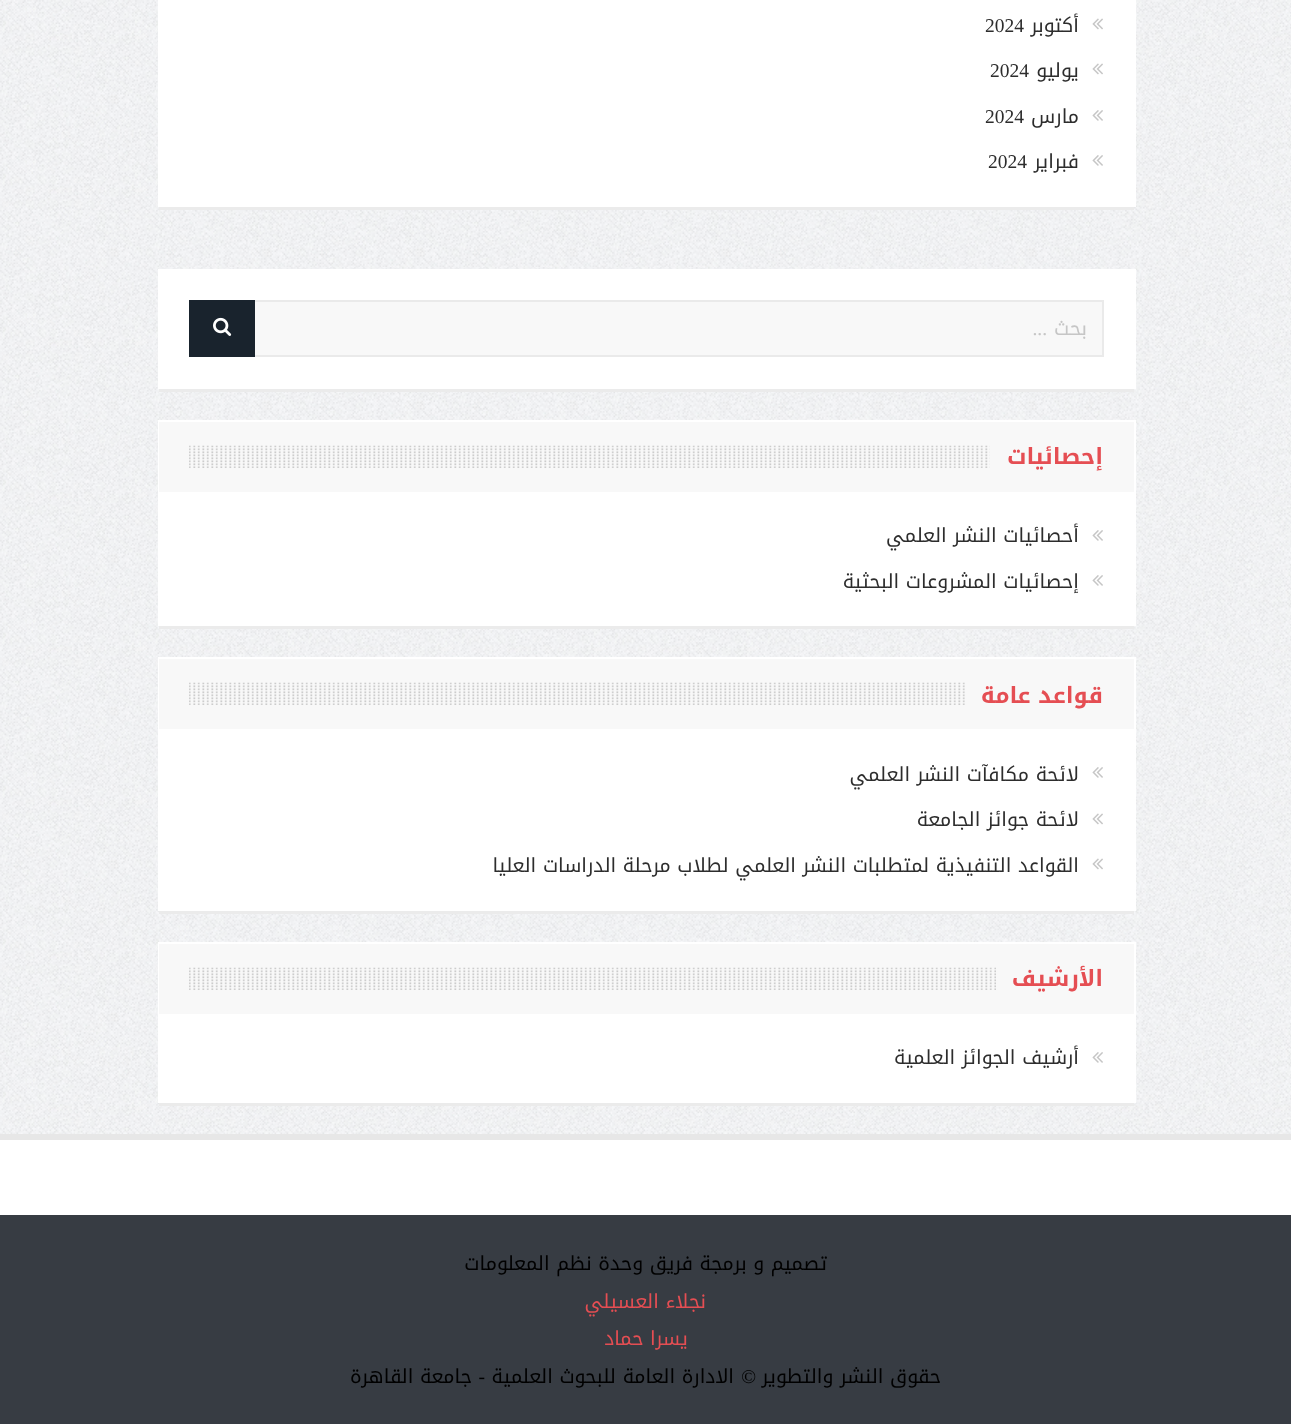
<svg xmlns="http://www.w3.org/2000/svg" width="1291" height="1424">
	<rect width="100%" height="100%" fill="#FFFFFF" />
	<image x="0" y="0" width="1291" height="1134" href="assets/img1.png" />
	<rect x="158" y="0" width="978" height="207" fill="#FFFFFF" />
	<image x="1092" y="18" width="11" height="12" href="assets/img2.png" />
	<text x="1079" y="32" font-family="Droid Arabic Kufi" font-size="19.5" direction="rtl" fill="#2D2D2D">أكتوبر</text>
	<text x="985" y="32" font-family="Liberation Serif" font-size="19.5" fill="#2D2D2D">2024</text>
	<image x="1092" y="63" width="11" height="12" href="assets/img2.png" />
	<text x="1079" y="77" font-family="Droid Arabic Kufi" font-size="19.5" direction="rtl" fill="#2D2D2D">يوليو</text>
	<text x="990" y="77" font-family="Liberation Serif" font-size="19.5" fill="#2D2D2D">2024</text>
	<image x="1092" y="110" width="11" height="11" href="assets/img3.png" />
	<text x="1079" y="123" font-family="Droid Arabic Kufi" font-size="19.5" direction="rtl" fill="#2D2D2D">مارس</text>
	<text x="985" y="123" font-family="Liberation Serif" font-size="19.5" fill="#2D2D2D">2024</text>
	<image x="1092" y="155" width="11" height="11" href="assets/img3.png" />
	<text x="1079" y="168" font-family="Droid Arabic Kufi" font-size="19.5" direction="rtl" fill="#2D2D2D">فبراير</text>
	<text x="988" y="168" font-family="Liberation Serif" font-size="19.5" fill="#2D2D2D">2024</text>
	<rect x="159" y="207" width="975" height="3" fill="#EBEBEB" />
	<rect x="158" y="269" width="978" height="120" fill="#FFFFFF" />
	<rect x="255" y="302" width="847" height="53" fill="#F8F8F8" />
	<rect x="190" y="301" width="913" height="55" fill="none" stroke="#EAEAEA" stroke-width="2" />
	<text x="1087" y="335" font-family="Droid Arabic Kufi" font-size="19.5" direction="rtl" fill="#C6C6C6">بحث</text>
	<text x="1047" y="335" font-family="Liberation Serif" font-size="19.5" direction="rtl" fill="#C6C6C6">...</text>
	<rect x="189" y="300" width="66" height="57" fill="#19232D" />
	<image x="213" y="317" width="19" height="19" href="assets/img4.png" />
	<rect x="159" y="389" width="975" height="3" fill="#EBEBEB" />
	<rect x="158" y="420" width="978" height="206" fill="#FFFFFF" />
	<rect x="159" y="422" width="975" height="70" fill="#F8F8F8" />
	<image x="189" y="445" width="801" height="23" href="assets/img5.png" />
	<text x="1103" y="464" font-family="Droid Arabic Kufi" font-size="22.5" font-weight="700" direction="rtl" fill="#E54E53">إحصائيات</text>
	<image x="1092" y="530" width="11" height="11" href="assets/img3.png" />
	<text x="1079" y="542" font-family="Droid Arabic Kufi" font-size="19.5" direction="rtl" fill="#2D2D2D">أحصائيات النشر العلمي</text>
	<image x="1092" y="575" width="11" height="11" href="assets/img3.png" />
	<text x="1079" y="588" font-family="Droid Arabic Kufi" font-size="19.5" direction="rtl" fill="#2D2D2D">إحصائيات المشروعات البحثية</text>
	<rect x="159" y="626" width="975" height="3" fill="#EBEBEB" />
	<rect x="158" y="657" width="978" height="254" fill="#FFFFFF" />
	<rect x="159" y="659" width="975" height="70" fill="#F8F8F8" />
	<image x="189" y="682" width="776" height="23" href="assets/img6.png" />
	<text x="1103" y="703" font-family="Droid Arabic Kufi" font-size="22.5" font-weight="700" direction="rtl" fill="#E54E53">قواعد عامة</text>
	<image x="1092" y="767" width="11" height="11" href="assets/img3.png" />
	<text x="1079" y="781" font-family="Droid Arabic Kufi" font-size="19.5" direction="rtl" fill="#2D2D2D">لائحة مكافآت النشر العلمي</text>
	<image x="1092" y="813" width="11" height="12" href="assets/img2.png" />
	<text x="1079" y="826" font-family="Droid Arabic Kufi" font-size="19.5" direction="rtl" fill="#2D2D2D">لائحة جوائز الجامعة</text>
	<image x="1092" y="858" width="11" height="12" href="assets/img2.png" />
	<text x="1079" y="872" font-family="Droid Arabic Kufi" font-size="19.5" direction="rtl" fill="#2D2D2D">القواعد التنفيذية لمتطلبات النشر العلمي لطلاب مرحلة الدراسات العليا</text>
	<rect x="159" y="911" width="975" height="3" fill="#EBEBEB" />
	<rect x="158" y="942" width="978" height="161" fill="#FFFFFF" />
	<rect x="159" y="944" width="975" height="70" fill="#F8F8F8" />
	<image x="189" y="967" width="807" height="23" href="assets/img7.png" />
	<text x="1103" y="986" font-family="Droid Arabic Kufi" font-size="22.5" font-weight="700" direction="rtl" fill="#E54E53">الأرشيف</text>
	<image x="1092" y="1052" width="11" height="11" href="assets/img3.png" />
	<text x="1079" y="1064" font-family="Droid Arabic Kufi" font-size="19.5" direction="rtl" fill="#2D2D2D">أرشيف الجوائز العلمية</text>
	<rect x="159" y="1103" width="975" height="3" fill="#EBEBEB" />
	<rect x="0" y="1134" width="1291" height="6" fill="#E7E7E7" />
	<rect x="0" y="1215" width="1291" height="209" fill="#373C43" />
	<g font-family="Droid Arabic Kufi" font-size="19.5" direction="rtl" fill="#000000">
		<text x="827" y="1270">تصميم و برمجة</text>
		<text x="693" y="1270">فريق وحدة نظم المعلومات</text>
	</g>
	<g font-family="Droid Arabic Kufi" font-size="19.5" direction="rtl" fill="#E54E53">
		<text x="706" y="1308">نجلاء العسيلي</text>
		<text x="688" y="1345">يسرا حماد</text>
	</g>
	<text x="941" y="1383" font-family="Droid Arabic Kufi" font-size="19.5" direction="rtl" fill="#000000">حقوق النشر والتطوير</text>
	<text x="756" y="1383" font-family="Liberation Serif" font-size="19.5" direction="rtl" fill="#000000">©</text>
	<text x="734" y="1383" font-family="Droid Arabic Kufi" font-size="19.5" direction="rtl" fill="#000000">الادارة العامة للبحوث العلمية</text>
	<text x="485" y="1383" font-family="Liberation Serif" font-size="19.5" direction="rtl" fill="#000000">-</text>
	<text x="472" y="1383" font-family="Droid Arabic Kufi" font-size="19.5" direction="rtl" fill="#000000">جامعة القاهرة</text>
</svg>
